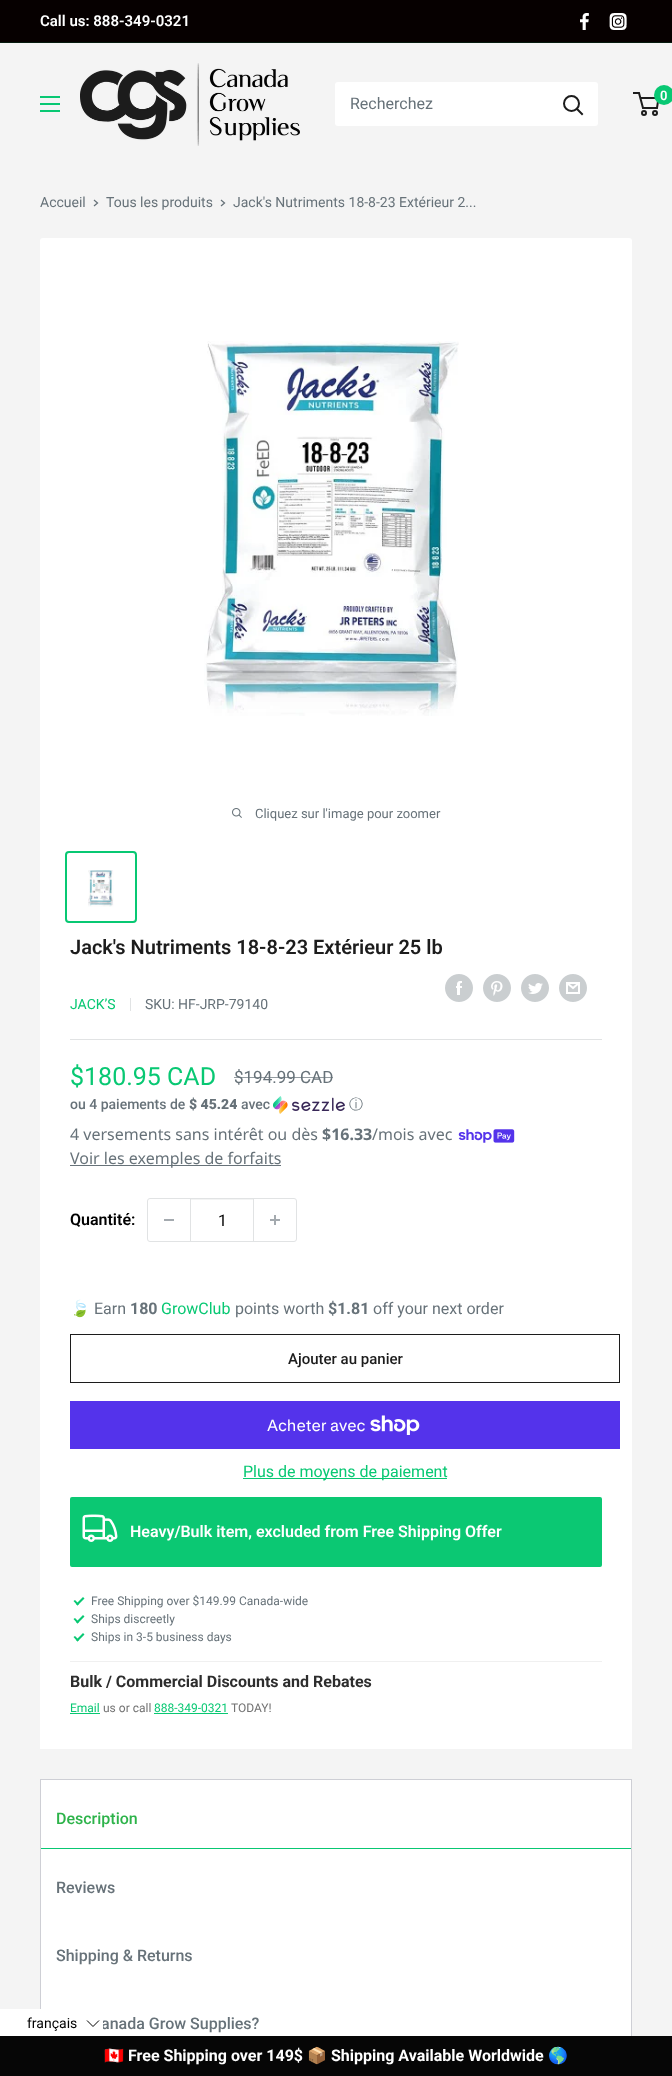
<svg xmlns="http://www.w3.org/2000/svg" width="672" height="2076">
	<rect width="100%" height="100%" fill="#F4F4F4" />
	<rect x="0" y="0" width="672" height="42" fill="#060000" />
	<rect x="0" y="42" width="672" height="1" fill="#061B0F" />
	<text x="40" y="26" font-family="Roboto" font-size="15" font-weight="600" fill="#FFFFFF">Call us: 888-349-0321</text>
	<image x="580" y="13" width="9" height="17" href="assets/img1.png" />
	<image x="609" y="13" width="18" height="17" href="assets/img2.png" />
	<image x="40" y="96" width="20" height="16" href="assets/img3.png" />
	<image x="80" y="63" width="220" height="83" href="assets/img4.png" />
	<rect x="335" y="82" width="263" height="44" rx="3" fill="#FFFFFF" />
	<text x="350" y="109" font-family="Roboto" font-size="16" fill="#677279">Recherchez</text>
	<path d="M582 114L577 109" fill="none" stroke="#1C1C1C" stroke-width="2" stroke-linecap="square" />
	<circle cx="571.5" cy="103.5" r="7.5" fill="none" stroke="#1C1C1C" stroke-width="2" />
	<circle cx="644" cy="113" r="2" fill="none" stroke="#1C1C1C" stroke-width="2" />
	<circle cx="655" cy="113" r="2" fill="none" stroke="#1C1C1C" stroke-width="2" />
	<path d="M640.5 98H658.5L657 108H643L639 93H633" fill="none" stroke="#1C1C1C" stroke-width="2" />
	<circle cx="664" cy="95" r="10" fill="#08C873" />
	<text x="660" y="100" font-family="Roboto" font-size="13" font-weight="600" fill="#FFFFFF">0</text>
	<text x="40" y="207" font-family="Roboto" font-size="14" fill="#677279">Accueil</text>
	<path d="M94.5 200.5L97.5 203L94.5 205.5" fill="none" stroke="#677279" stroke-width="1.3" stroke-linecap="square" />
	<text x="106" y="207" font-family="Roboto" font-size="14" fill="#677279">Tous les produits</text>
	<path d="M221.5 200.5L224.5 203L221.5 205.5" fill="none" stroke="#677279" stroke-width="1.3" stroke-linecap="square" />
	<text x="233" y="207" font-family="Roboto" font-size="14" fill="#677279">Jack's Nutriments 18-8-23 Extérieur 2...</text>
	<rect x="40" y="950" width="592" height="799" fill="#FFFFFF" />
	<rect x="40" y="238" width="592" height="715" rx="3" fill="#FFFFFF" />
	<image x="204" y="341" width="255" height="375" href="assets/img5.png" />
	<image x="232" y="808" width="10" height="10" href="assets/img6.png" />
	<text x="255" y="818" font-family="Roboto" font-size="13" fill="#677279">Cliquez sur l'image pour zoomer</text>
	<rect x="66" y="852" width="70" height="70" rx="3" fill="none" stroke="#08C873" stroke-width="2" />
	<image x="88" y="870" width="26" height="37" href="assets/img7.png" />
	<text x="70" y="954" font-family="Roboto" font-size="20" font-weight="600" fill="#1C1C1C">Jack's Nutriments 18-8-23 Extérieur 25 lb</text>
	<image x="445" y="974" width="28" height="28" href="assets/img8.png" />
	<image x="483" y="974" width="28" height="28" href="assets/img9.png" />
	<image x="521" y="974" width="28" height="28" href="assets/img10.png" />
	<image x="559" y="974" width="28" height="28" href="assets/img11.png" />
	<text x="70" y="1009" font-family="Roboto" font-size="14" fill="#08C873">JACK’S</text>
	<rect x="130" y="998" width="1" height="13" fill="#E1E3E4" />
	<text x="145" y="1009" font-family="Roboto" font-size="14" fill="#677279">SKU: HF-JRP-79140</text>
	<rect x="70" y="1039" width="532" height="1" fill="#E1E3E4" />
	<text x="70" y="1085" font-family="Roboto" font-size="25" fill="#08C873">$180.95 CAD</text>
	<text x="234" y="1083" font-family="Roboto" font-size="17" fill="#677279">$194.99 CAD</text>
	<rect x="234" y="1077" width="99" height="1" fill="#677279" fill-opacity="0.7" />
	<text x="70" y="1109" font-family="Roboto" font-size="14" font-weight="500" fill="#677279">ou 4 paiements de</text>
	<text x="189" y="1109" font-family="Roboto" font-size="14" font-weight="900" fill="#677279">$ 45.24</text>
	<text x="241" y="1109" font-family="Roboto" font-size="14" font-weight="500" fill="#677279">avec</text>
	<image x="273" y="1096" width="72" height="18" href="assets/img12.png" />
	<text x="349" y="1109" font-family="WenQuanYi Zen Hei" font-size="14" font-weight="500" fill="#677279">ⓘ</text>
	<text x="70" y="1140" font-family="Noto Sans" font-size="16" fill="#677279">4 versements sans intérêt ou dès</text>
	<text x="322" y="1140" font-family="Noto Sans" font-size="16" font-weight="700" fill="#677279">$16.33</text>
	<text x="372" y="1140" font-family="Noto Sans" font-size="16" fill="#677279">/mois avec</text>
	<image x="458" y="1129" width="57" height="14" href="assets/img13.png" />
	<rect x="70" y="1165" width="211" height="1" fill="#677279" />
	<text x="70" y="1164" font-family="Noto Sans" font-size="16" fill="#677279">Voir les exemples de forfaits</text>
	<text x="70" y="1225" font-family="Roboto" font-size="16" font-weight="600" fill="#000000">Quantité:</text>
	<rect x="147.5" y="1198.5" width="149" height="43" rx="2.5" fill="none" stroke="#E1E3E4" />
	<rect x="164" y="1219" width="10" height="2" fill="#A4AAAF" />
	<rect x="191" y="1199" width="62" height="1" fill="#F3F4F4" />
	<rect x="253" y="1199" width="1" height="42" fill="#E1E3E4" />
	<rect x="190" y="1199" width="1" height="42" fill="#E1E3E4" />
	<text x="218" y="1226" font-family="Roboto" font-size="16" fill="#000000">1</text>
	<image x="270" y="1215" width="10" height="10" href="assets/img14.png" />
	<text x="70" y="1314" font-family="Noto Color Emoji" font-size="16" fill="#677279">🍃</text>
	<text x="94" y="1314" font-family="Roboto" font-size="16" fill="#677279">Earn</text>
	<text x="130" y="1314" font-family="Roboto" font-size="16" font-weight="700" fill="#677279">180</text>
	<text x="161" y="1314" font-family="Roboto" font-size="16" fill="#08C873">GrowClub</text>
	<text x="235" y="1314" font-family="Roboto" font-size="16" fill="#677279">points worth</text>
	<text x="328" y="1314" font-family="Roboto" font-size="16" font-weight="700" fill="#677279">$1.81</text>
	<text x="373" y="1314" font-family="Roboto" font-size="16" fill="#677279">off your next order</text>
	<rect x="70.5" y="1334.5" width="549" height="48" fill="none" stroke="#1C1C1C" />
	<text x="288" y="1364" font-family="Roboto" font-size="15" font-weight="500" fill="#1C1C1C">Ajouter au panier</text>
	<rect x="70" y="1401" width="550" height="48" fill="#5433EB" />
	<text x="267" y="1431" font-family="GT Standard" font-size="16" fill="#FFFFFF">Acheter avec</text>
	<image x="370" y="1415" width="50" height="20" href="assets/img15.png" />
	<rect x="243" y="1478" width="204" height="1" fill="#08C873" />
	<text x="243" y="1477" font-family="Roboto" font-size="16" fill="#08C873">Plus de moyens de paiement</text>
	<rect x="70" y="1497" width="532" height="70" rx="2" fill="#0BC873" />
	<image x="82" y="1514" width="36" height="28" href="assets/img16.png" />
	<text x="130" y="1537" font-family="Roboto" font-size="16" font-weight="600" fill="#FFFFFF">Heavy/Bulk item, excluded from Free Shipping Offer</text>
	<path d="M83 1597L84.5 1598.5L77.5 1605.5L76 1604Z" fill="#08C873" />
	<path d="M75 1600L79 1604L77.5 1605.5L73.5 1601ZM83 1615L84.5 1616.5L77.5 1623.5L76 1622Z" fill="#08C873" />
	<text x="91" y="1605" font-family="Roboto" font-size="12" fill="#677279">Free Shipping over $149.99 Canada-wide</text>
	<path d="M75 1618L79 1622L77.5 1623.5L73.5 1619ZM83 1633L84.5 1634.5L77.5 1641.5L76 1640Z" fill="#08C873" />
	<text x="91" y="1623" font-family="Roboto" font-size="12" fill="#677279">Ships discreetly</text>
	<path d="M75 1636L79 1640L77.5 1641.5L73.5 1637Z" fill="#08C873" />
	<text x="91" y="1641" font-family="Roboto" font-size="12" fill="#677279">Ships in 3-5 business days</text>
	<rect x="70" y="1661" width="532" height="1" fill="#F0F0F0" />
	<text x="70" y="1687" font-family="Roboto" font-size="16" font-weight="700" fill="#2D2D2D">Bulk / Commercial Discounts and Rebates</text>
	<text x="70" y="1712" font-family="Roboto" font-size="12" fill="#08C873">Email</text>
	<rect x="70" y="1713" width="30" height="1" fill="#08C873" />
	<text x="103" y="1712" font-family="Roboto" font-size="12" fill="#727272">us or call</text>
	<text x="154" y="1712" font-family="Roboto" font-size="12" fill="#08C873">888-349-0321</text>
	<rect x="154" y="1713" width="74" height="1" fill="#08C873" />
	<text x="231" y="1712" font-family="Roboto" font-size="12" fill="#727272">TODAY!</text>
	<rect x="41" y="1780" width="590" height="256" fill="#FFFFFF" />
	<rect x="40" y="1779" width="592" height="1" fill="#CECFD5" />
	<rect x="631" y="1779" width="1" height="257" fill="#CECFD5" />
	<rect x="40" y="1779" width="1" height="230" fill="#CECFD5" />
	<rect x="41" y="1848" width="590" height="1" fill="#08C873" />
	<text x="56" y="1824" font-family="Roboto" font-size="16" font-weight="500" fill="#2DB34A">Description</text>
	<g font-family="Roboto" font-size="16" font-weight="500" fill="#677279">
		<text x="56" y="1893">Reviews</text>
		<text x="56" y="1961">Shipping &amp; Returns</text>
		<text x="101" y="2029">anada Grow Supplies?</text>
	</g>
	<rect x="0" y="2009" width="103" height="27" fill="#FFFFFF" />
	<text x="27" y="2028" font-family="Roboto" font-size="14" fill="#000000">français</text>
	<path d="M87 2020.5L93 2026.5L99 2020.5" fill="none" stroke="#000000" />
	<rect x="0" y="2036" width="672" height="40" fill="#060606" />
	<text x="104" y="2061" font-family="Noto Color Emoji" font-size="16" font-weight="700" fill="#FFFFFF">🇨🇦</text>
	<text x="128" y="2061" font-family="Roboto" font-size="16" font-weight="700" fill="#FFFFFF">Free Shipping over 149$</text>
	<text x="307" y="2061" font-family="Noto Color Emoji" font-size="16" font-weight="700" fill="#FFFFFF">📦</text>
	<text x="331" y="2061" font-family="Roboto" font-size="16" font-weight="700" fill="#FFFFFF">Shipping Available Worldwide</text>
	<text x="548" y="2061" font-family="Noto Color Emoji" font-size="16" font-weight="700" fill="#FFFFFF">🌎</text>
</svg>
